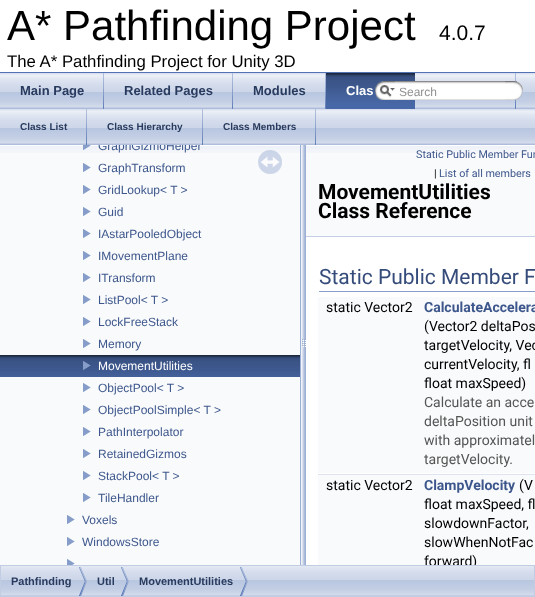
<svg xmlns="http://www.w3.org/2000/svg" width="535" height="597">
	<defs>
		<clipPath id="clip1"><rect x="0" y="145" width="300" height="420" /></clipPath>
	</defs>
	<rect width="100%" height="100%" fill="#FFFFFF" />
	<rect x="0" y="72" width="535" height="1" fill="#5373B4" />
	<text x="7" y="40" font-family="Liberation Sans" font-size="42" fill="#000000">A* Pathfinding Project</text>
	<text x="439" y="40" font-family="Liberation Sans" font-size="21" fill="#000000">4.0.7</text>
	<text x="7" y="67" font-family="Liberation Sans" font-size="16.75" fill="#000000">The A* Pathfinding Project for Unity 3D</text>
	<image x="0" y="73" width="535" height="36" href="assets/img1.png" />
	<image x="103" y="73" width="1" height="36" href="assets/img2.png" />
	<text x="20" y="95" font-family="Liberation Sans" font-size="13" font-weight="700" fill="#283A5D">Main Page</text>
	<image x="232" y="73" width="1" height="36" href="assets/img2.png" />
	<text x="124" y="95" font-family="Liberation Sans" font-size="13" font-weight="700" fill="#283A5D">Related Pages</text>
	<image x="325" y="73" width="1" height="36" href="assets/img2.png" />
	<text x="253" y="95" font-family="Liberation Sans" font-size="13" font-weight="700" fill="#283A5D">Modules</text>
	<image x="326" y="73" width="89" height="36" href="assets/img3.png" />
	<text x="346" y="95" font-family="Liberation Sans" font-size="13" font-weight="700" fill="#FFFFFF">Clas</text>
	<image x="375" y="81" width="20" height="19" href="assets/img4.png" />
	<image x="380" y="85" width="15" height="12" href="assets/img5.png" />
	<image x="515" y="73" width="1" height="36" href="assets/img2.png" />
	<image x="395" y="81" width="122" height="19" href="assets/img6.png" />
	<text x="399" y="96" font-family="Liberation Sans" font-size="12" fill="#909090">Search</text>
	<image x="505" y="81" width="18" height="19" href="assets/img7.png" />
	<image x="0" y="109" width="535" height="36" href="assets/img1.png" />
	<image x="86" y="109" width="1" height="36" href="assets/img2.png" />
	<text x="20" y="130" font-family="Liberation Sans" font-size="10" font-weight="700" fill="#283A5D">Class List</text>
	<image x="202" y="109" width="1" height="36" href="assets/img2.png" />
	<text x="107" y="130" font-family="Liberation Sans" font-size="10" font-weight="700" fill="#283A5D">Class Hierarchy</text>
	<image x="315" y="109" width="1" height="36" href="assets/img2.png" />
	<text x="223" y="130" font-family="Liberation Sans" font-size="10" font-weight="700" fill="#283A5D">Class Members</text>
	<rect x="0" y="153" width="300" height="412" fill="#F9FAFC" />
	<image x="0" y="145" width="300" height="8" href="assets/img8.png" />
	<image x="83" y="145" width="8" height="5" href="assets/img9.png" />
	<g clip-path="url(#clip1)">
		<text x="98" y="150" font-family="Liberation Sans" font-size="12" fill="#3D578C">GraphGizmoHelper</text>
	</g>
	<image x="83" y="163" width="8" height="9" href="assets/img10.png" />
	<text x="98" y="172" font-family="Liberation Sans" font-size="12" fill="#3D578C">GraphTransform</text>
	<image x="83" y="185" width="8" height="9" href="assets/img10.png" />
	<text x="98" y="194" font-family="Liberation Sans" font-size="12" fill="#3D578C">GridLookup&lt; T &gt;</text>
	<image x="83" y="207" width="8" height="9" href="assets/img10.png" />
	<text x="98" y="216" font-family="Liberation Sans" font-size="12" fill="#3D578C">Guid</text>
	<image x="83" y="229" width="8" height="9" href="assets/img10.png" />
	<text x="98" y="238" font-family="Liberation Sans" font-size="12" fill="#3D578C">IAstarPooledObject</text>
	<image x="83" y="251" width="8" height="9" href="assets/img10.png" />
	<text x="98" y="260" font-family="Liberation Sans" font-size="12" fill="#3D578C">IMovementPlane</text>
	<image x="83" y="273" width="8" height="9" href="assets/img10.png" />
	<text x="98" y="282" font-family="Liberation Sans" font-size="12" fill="#3D578C">ITransform</text>
	<image x="83" y="295" width="8" height="9" href="assets/img10.png" />
	<text x="98" y="304" font-family="Liberation Sans" font-size="12" fill="#3D578C">ListPool&lt; T &gt;</text>
	<image x="83" y="317" width="8" height="9" href="assets/img10.png" />
	<text x="98" y="326" font-family="Liberation Sans" font-size="12" fill="#3D578C">LockFreeStack</text>
	<image x="83" y="339" width="8" height="9" href="assets/img10.png" />
	<text x="98" y="348" font-family="Liberation Sans" font-size="12" fill="#3D578C">Memory</text>
	<image x="0" y="355" width="300" height="22" href="assets/img11.png" />
	<image x="83" y="361" width="8" height="9" href="assets/img12.png" />
	<text x="98" y="370" font-family="Liberation Sans" font-size="12" fill="#FFFFFF">MovementUtilities</text>
	<image x="83" y="383" width="8" height="9" href="assets/img10.png" />
	<text x="98" y="392" font-family="Liberation Sans" font-size="12" fill="#3D578C">ObjectPool&lt; T &gt;</text>
	<image x="83" y="405" width="8" height="9" href="assets/img10.png" />
	<text x="98" y="414" font-family="Liberation Sans" font-size="12" fill="#3D578C">ObjectPoolSimple&lt; T &gt;</text>
	<image x="83" y="427" width="8" height="9" href="assets/img10.png" />
	<text x="98" y="436" font-family="Liberation Sans" font-size="12" fill="#3D578C">PathInterpolator</text>
	<image x="83" y="449" width="8" height="9" href="assets/img10.png" />
	<text x="98" y="458" font-family="Liberation Sans" font-size="12" fill="#3D578C">RetainedGizmos</text>
	<image x="83" y="471" width="8" height="9" href="assets/img10.png" />
	<text x="98" y="480" font-family="Liberation Sans" font-size="12" fill="#3D578C">StackPool&lt; T &gt;</text>
	<image x="83" y="493" width="8" height="9" href="assets/img10.png" />
	<text x="98" y="502" font-family="Liberation Sans" font-size="12" fill="#3D578C">TileHandler</text>
	<image x="67" y="515" width="8" height="9" href="assets/img10.png" />
	<text x="82" y="524" font-family="Liberation Sans" font-size="12" fill="#3D578C">Voxels</text>
	<image x="67" y="537" width="8" height="9" href="assets/img10.png" />
	<text x="82" y="546" font-family="Liberation Sans" font-size="12" fill="#3D578C">WindowsStore</text>
	<image x="67" y="559" width="8" height="6" href="assets/img13.png" />
	<image x="258" y="150" width="24" height="24" href="assets/img14.png" />
	<image x="300" y="145" width="6" height="420" href="assets/img15.png" />
	<rect x="306" y="153" width="229" height="83" fill="#F9FAFC" />
	<image x="306" y="145" width="229" height="8" href="assets/img16.png" />
	<rect x="306" y="236" width="229" height="1" fill="#C4CFE5" />
	<text x="416" y="158" font-family="Roboto" font-size="10.75" fill="#3D578C">Static Public Member Fun</text>
	<text x="434" y="177" font-family="Roboto" font-size="10.75" fill="#000000">|</text>
	<text x="439" y="177" font-family="Roboto" font-size="10.75" fill="#3D578C">List of all members</text>
	<g font-family="Roboto" font-size="21" font-weight="700" fill="#000000">
		<text x="318" y="199">MovementUtilities</text>
		<text x="318" y="218">Class Reference</text>
	</g>
	<rect x="319" y="291" width="216" height="1" fill="#879ECB" />
	<text x="319" y="284" font-family="Roboto" font-size="21" fill="#354C7B">Static Public Member F</text>
	<rect x="318" y="297" width="217" height="96" fill="#F9FAFC" />
	<text x="326" y="312" font-family="Roboto" font-size="14" fill="#000000">static Vector2</text>
	<text x="424" y="312" font-family="Roboto" font-size="14" font-weight="700" fill="#3D578C">CalculateAccelera</text>
	<g font-family="Roboto" font-size="14" fill="#000000">
		<text x="424" y="331">(Vector2 deltaPos</text>
		<text x="424" y="350">targetVelocity, Vec</text>
		<text x="424" y="369">currentVelocity, fl</text>
		<text x="424" y="388">float maxSpeed)</text>
	</g>
	<rect x="318" y="393" width="217" height="80" fill="#F9FAFC" />
	<g font-family="Roboto" font-size="14" fill="#555555">
		<text x="424" y="407">Calculate an acce</text>
		<text x="424" y="426">deltaPosition unit</text>
		<text x="424" y="445">with approximatel</text>
		<text x="424" y="464">targetVelocity.</text>
	</g>
	<rect x="318" y="474" width="217" height="1" fill="#DEE4F0" />
	<rect x="318" y="475" width="217" height="90" fill="#F9FAFC" />
	<text x="326" y="490" font-family="Roboto" font-size="14" fill="#000000">static Vector2</text>
	<text x="424" y="490" font-family="Roboto" font-size="14" font-weight="700" fill="#3D578C">ClampVelocity</text>
	<g font-family="Roboto" font-size="14" fill="#000000">
		<text x="519" y="490">(V</text>
		<text x="424" y="509">float maxSpeed, fl</text>
		<text x="424" y="528">slowdownFactor,</text>
		<text x="424" y="547">slowWhenNotFac</text>
		<text x="424" y="566">forward)</text>
	</g>
	<image x="1" y="566" width="533" height="30" href="assets/img17.png" />
	<rect x="0.5" y="565.5" width="534" height="31" fill="none" stroke="#C2CDE4" />
	<image x="79" y="567" width="8" height="29" href="assets/img18.png" />
	<text x="11" y="585" font-family="Liberation Sans" font-size="11" font-weight="700" fill="#283A5D">Pathfinding</text>
	<image x="121" y="567" width="8" height="29" href="assets/img18.png" />
	<text x="97" y="585" font-family="Liberation Sans" font-size="11" font-weight="700" fill="#283A5D">Util</text>
	<image x="240" y="567" width="8" height="29" href="assets/img18.png" />
	<text x="139" y="585" font-family="Liberation Sans" font-size="11" font-weight="700" fill="#283A5D">MovementUtilities</text>
</svg>
